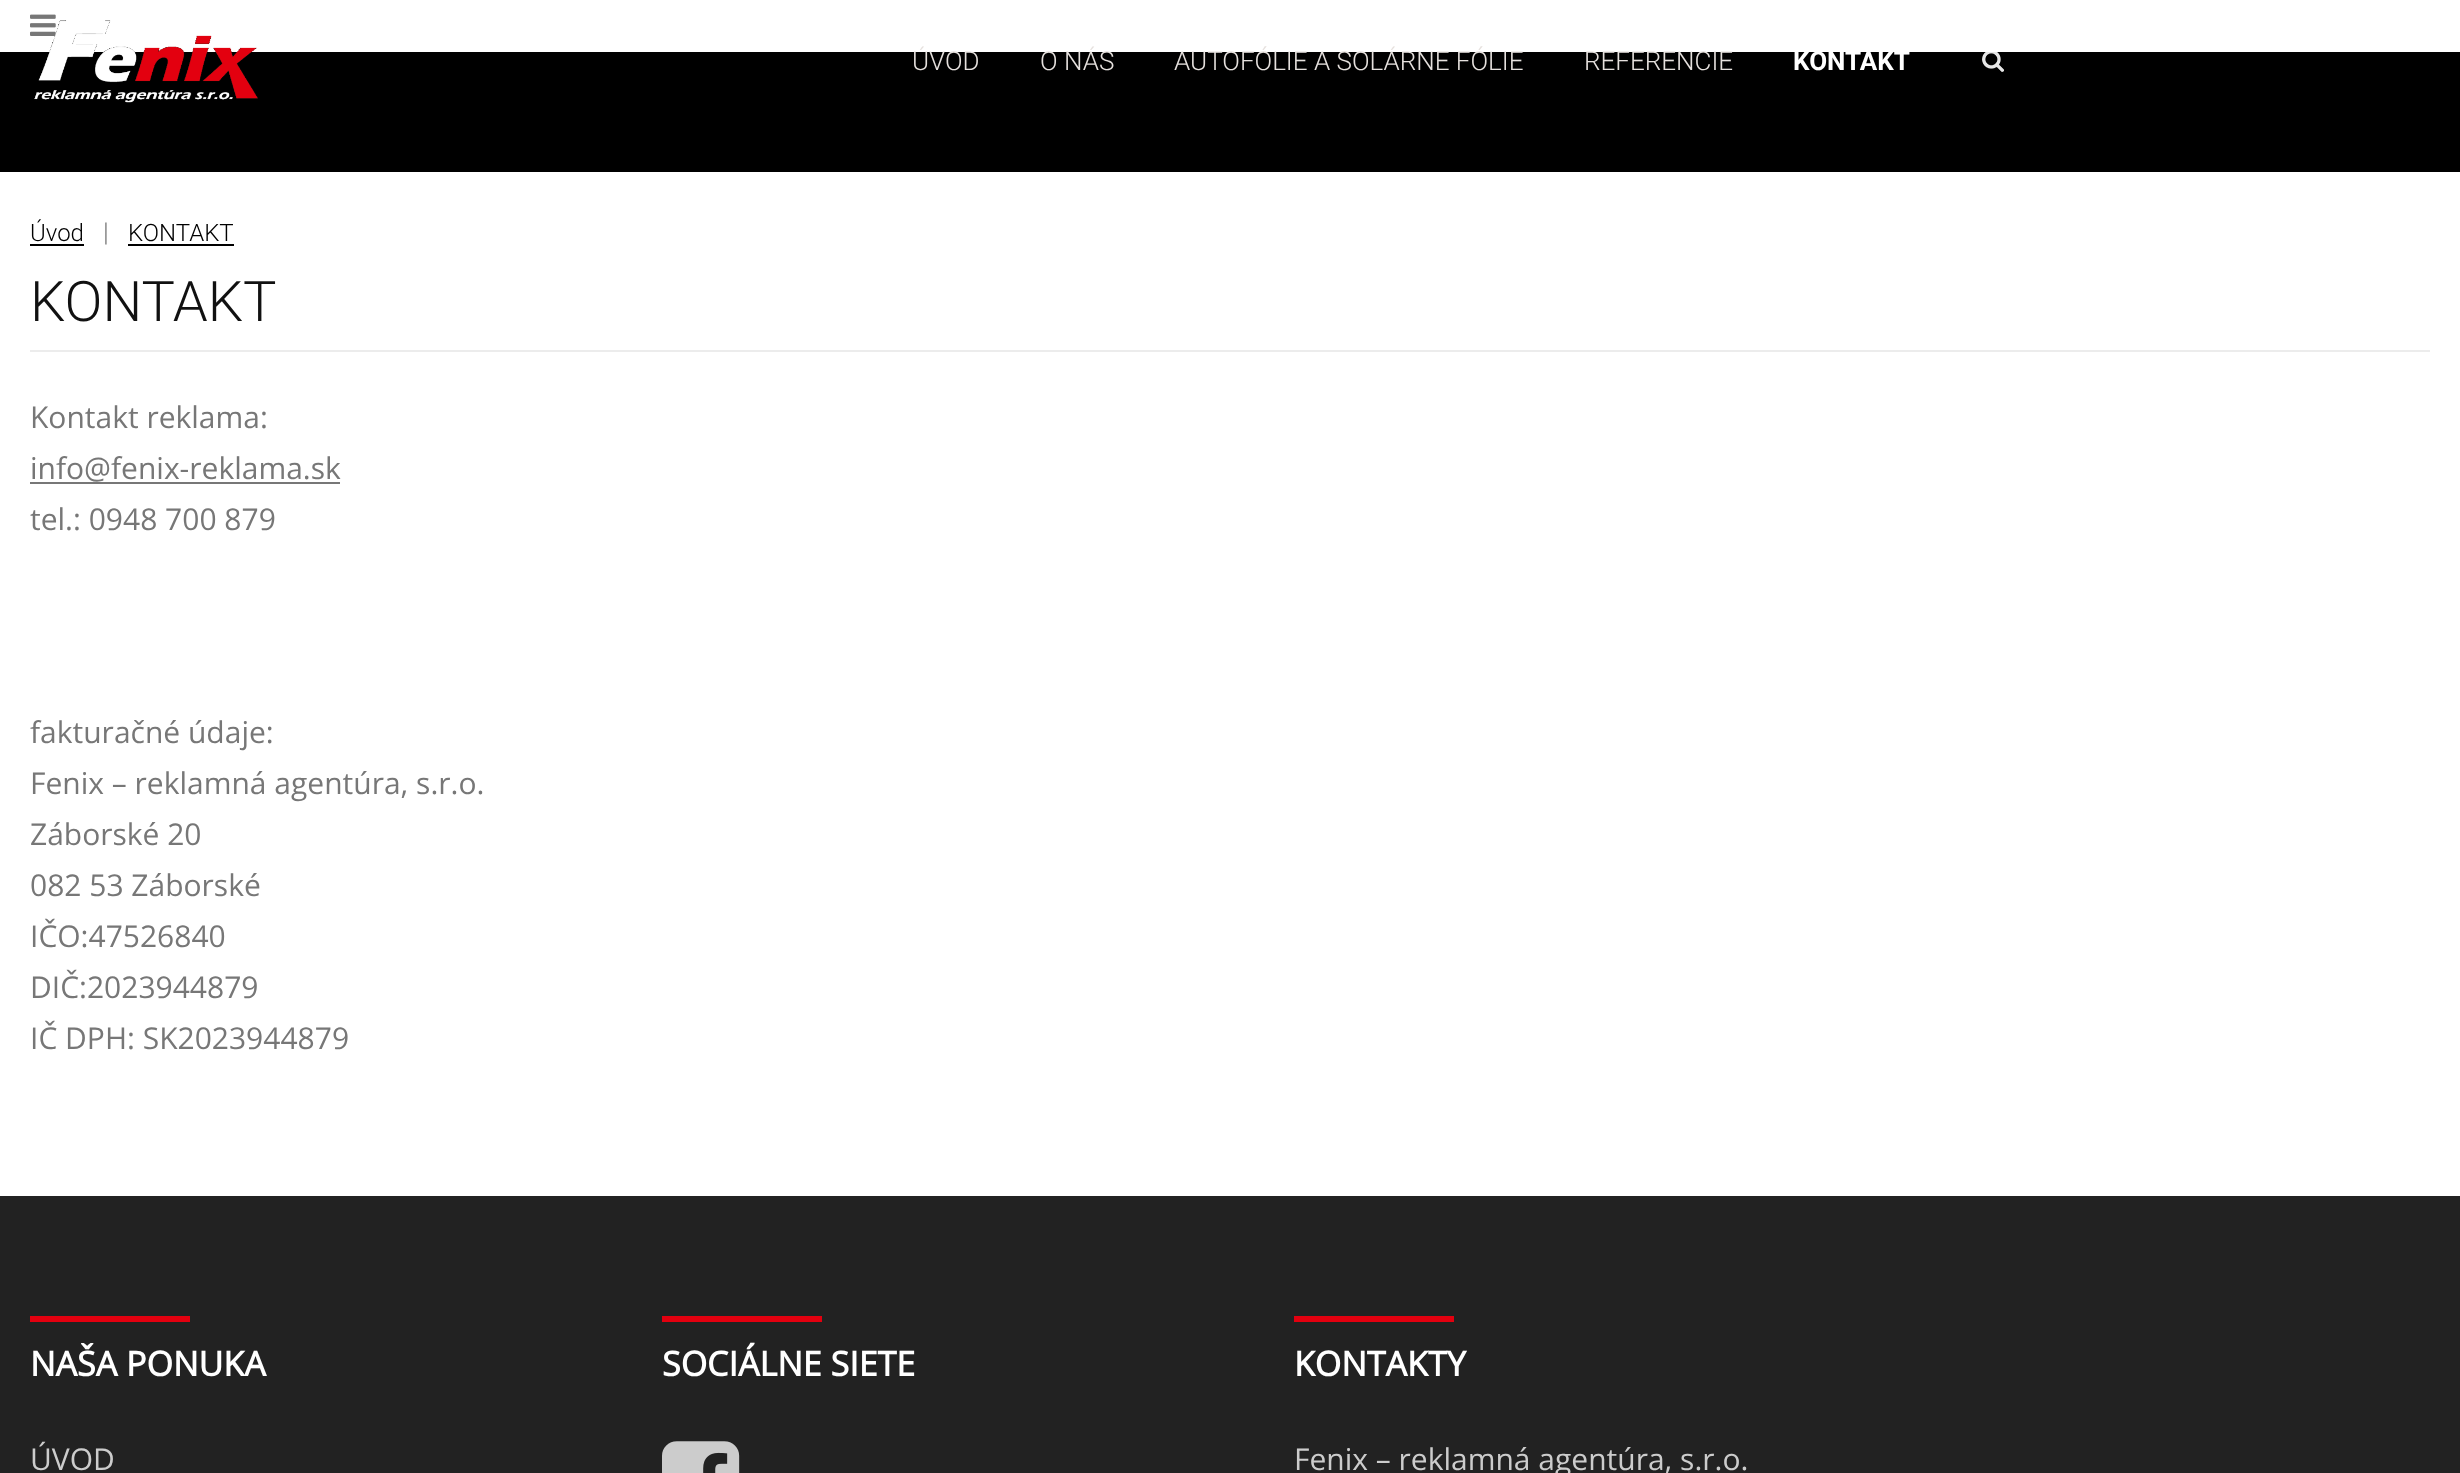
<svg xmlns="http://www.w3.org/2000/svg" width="2460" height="1473">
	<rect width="100%" height="100%" fill="#FFFFFF" />
	<image x="30" y="14" width="26" height="22" href="assets/img1.png" />
	<rect x="0" y="52" width="2460" height="120" fill="#000000" />
	<image x="34" y="20" width="224" height="83" href="assets/img2.png" />
	<g font-family="Roboto" font-size="26" font-weight="300" fill="#E6E1DE">
		<text x="912" y="70">ÚVOD</text>
		<text x="1040" y="70">O NÁS</text>
		<text x="1174" y="70">AUTOFÓLIE A SOLÁRNE FÓLIE</text>
		<text x="1584" y="70">REFERENCIE</text>
	</g>
	<text x="1793" y="70" font-family="Roboto" font-size="26" font-weight="700" fill="#FFFFFF">KONTAKT</text>
	<image x="1982" y="52" width="22" height="20" href="assets/img3.png" />
	<text x="30" y="241" font-family="Roboto" font-size="24" font-weight="300" fill="#000000">Úvod</text>
	<rect x="30" y="244" width="54" height="2" fill="#000000" />
	<text x="103" y="241" font-family="Roboto" font-size="26" font-weight="300" fill="#777777">|</text>
	<text x="128" y="241" font-family="Roboto" font-size="24" font-weight="300" fill="#000000">KONTAKT</text>
	<rect x="128" y="244" width="106" height="2" fill="#000000" />
	<rect x="30" y="350" width="2400" height="2" fill="#ECECEC" />
	<text x="30" y="321" font-family="Roboto" font-size="56" font-weight="300" fill="#111111">KONTAKT</text>
	<g font-family="Open Sans" font-size="30" fill="#777777">
		<text x="30" y="428">Kontakt reklama:</text>
		<text x="30" y="479">info@fenix-reklama.sk</text>
	</g>
	<rect x="30" y="482" width="310" height="2" fill="#777777" />
	<g font-family="Open Sans" font-size="30" fill="#777777">
		<text x="30" y="530">tel.: 0948 700 879</text>
		<text x="30" y="743">fakturačné údaje:</text>
		<text x="30" y="794">Fenix – reklamná agentúra, s.r.o.</text>
		<text x="30" y="845">Záborské 20</text>
		<text x="30" y="896">082 53 Záborské</text>
		<text x="30" y="947">IČO:47526840</text>
		<text x="30" y="998">DIČ:2023944879</text>
		<text x="30" y="1049">IČ DPH: SK2023944879</text>
	</g>
	<rect x="0" y="1196" width="2460" height="277" fill="#222222" />
	<rect x="30" y="1316" width="160" height="6" fill="#E3000F" />
	<text x="30" y="1376" font-family="Open Sans" font-size="34" font-weight="700" fill="#FFFFFF">NAŠA PONUKA</text>
	<text x="30" y="1470" font-family="Open Sans" font-size="30" fill="#CCCCCC">ÚVOD</text>
	<rect x="662" y="1316" width="160" height="6" fill="#E3000F" />
	<text x="662" y="1376" font-family="Open Sans" font-size="34" font-weight="700" fill="#FFFFFF">SOCIÁLNE SIETE</text>
	<image x="662" y="1441" width="78" height="32" href="assets/img4.png" />
	<rect x="1294" y="1316" width="160" height="6" fill="#E3000F" />
	<text x="1294" y="1376" font-family="Open Sans" font-size="34" font-weight="700" fill="#FFFFFF">KONTAKTY</text>
	<text x="1294" y="1470" font-family="Open Sans" font-size="30" fill="#CCCCCC">Fenix – reklamná agentúra, s.r.o.</text>
</svg>
